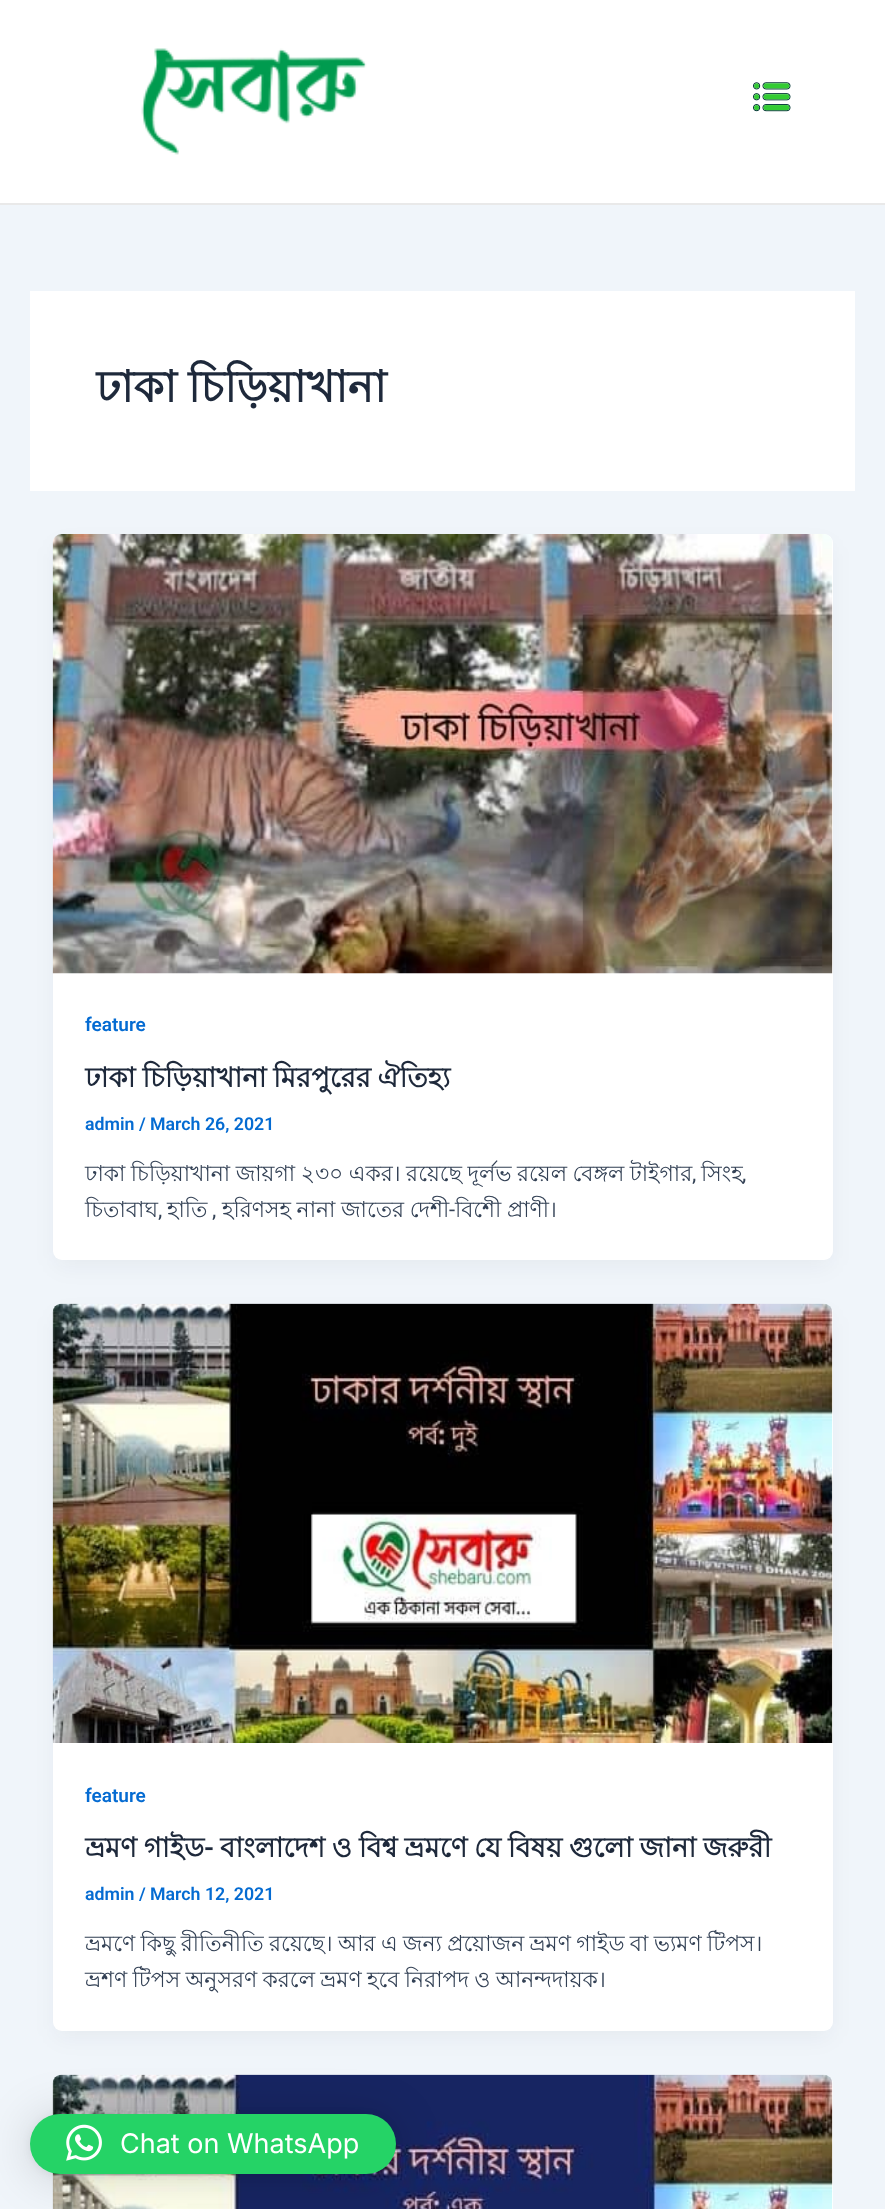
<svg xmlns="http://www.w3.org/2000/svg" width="885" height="2209">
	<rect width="100%" height="100%" fill="#F0F5FA" />
	<rect x="0" y="0" width="885" height="203" fill="#FFFFFF" />
	<rect x="0" y="203" width="885" height="2" fill="#E9E9E9" />
	<image x="141" y="48" width="226" height="107" href="assets/img1.png" />
	<image x="753" y="82" width="38" height="30" href="assets/img2.png" />
	<rect x="30" y="291" width="825" height="200" fill="#FFFFFF" />
	<text x="96" y="402" word-spacing="-1" font-family="Lohit Bengali" font-size="43.75" font-weight="700" fill="#1E293B">ঢাকা চিড়িয়াখানা</text>
	<rect x="56" y="546" width="774" height="720" rx="6" fill="#101828" fill-opacity="0.05" filter="blur(11px)" />
	<rect x="53" y="534" width="780" height="726" rx="9" fill="#FFFFFF" />
	<image x="52" y="534" width="781" height="440" href="assets/img3.png" />
	<text x="85" y="1031" font-family="Roboto" font-size="19" font-weight="600" fill="#046BD2">feature</text>
	<text x="85" y="1087" word-spacing="-1" font-family="Lohit Bengali" font-size="27.4" font-weight="700" fill="#1E293B">ঢাকা চিড়িয়াখানা মিরপুরের ঐতিহ্য</text>
	<text x="85" y="1130" font-family="Roboto" font-size="17.75" font-weight="600" fill="#046BD2">admin / March 26, 2021</text>
	<text x="85" y="1181" word-spacing="-0.6" font-family="Lohit Bengali" font-size="21.9" fill="#334155">ঢাকা চিড়িয়াখানা জায়গা ২৩০ একর। রয়েছে দূর্লভ রয়েল বেঙ্গল টাইগার</text>
	<text x="692" y="1181" font-family="Roboto" font-size="21.9" fill="#334155">,</text>
	<text x="701" y="1181" font-family="Lohit Bengali" font-size="21.9" fill="#334155">সিংহ</text>
	<text x="742" y="1181" font-family="Roboto" font-size="21.9" fill="#334155">,</text>
	<g font-family="Lohit Bengali" font-size="21.9" fill="#334155">
		<text x="85" y="1217">চিতাবাঘ</text>
		<text x="167" y="1217">হাতি</text>
		<text x="222" y="1217" word-spacing="-0.5">হরিণসহ নানা জাতের দেশী বিশেী প্রাণী।</text>
	</g>
	<g font-family="Roboto" font-size="21.9" fill="#334155">
		<text x="449" y="1217">-</text>
		<text x="158" y="1217">,</text>
		<text x="212" y="1217">,</text>
	</g>
	<rect x="56" y="1316" width="774" height="721" rx="6" fill="#101828" fill-opacity="0.05" filter="blur(11px)" />
	<rect x="53" y="1304" width="780" height="727" rx="9" fill="#FFFFFF" />
	<image x="52" y="1303" width="781" height="440" href="assets/img4.png" />
	<text x="85" y="1802" font-family="Roboto" font-size="19" font-weight="600" fill="#046BD2">feature</text>
	<text x="85" y="1857" word-spacing="-0.75" font-family="Lohit Bengali" font-size="27.4" font-weight="700" fill="#1E293B">ভ্রমণ গাইড</text>
	<text x="204" y="1857" font-family="Roboto" font-size="27.4" font-weight="600" fill="#1E293B">-</text>
	<text x="220" y="1857" word-spacing="-0.75" font-family="Lohit Bengali" font-size="27.4" font-weight="700" fill="#1E293B">বাংলাদেশ ও বিশ্ব ভ্রমণে যে বিষয় গুলো জানা জরুরী</text>
	<text x="85" y="1900" font-family="Roboto" font-size="17.75" font-weight="600" fill="#046BD2">admin / March 12, 2021</text>
	<g font-family="Lohit Bengali" font-size="21.9" fill="#334155">
		<text x="85" y="1951" word-spacing="-0.75">ভ্রমণে কিছু রীতিনীতি রয়েছে। আর এ জন্য প্রয়োজন ভ্রমণ গাইড বা ভ্যমণ টিপস।</text>
		<text x="85" y="1987" word-spacing="-0.75">ভ্রশণ টিপস অনুসরণ করলে ভ্রমণ হবে নিরাপদ ও আনন্দদায়ক।</text>
	</g>
	<rect x="53" y="2075" width="780" height="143" rx="9" fill="#FFFFFF" />
	<image x="52" y="2074" width="781" height="135" href="assets/img5.png" />
	<rect x="30" y="2117" width="366" height="60" rx="30" fill="#000000" fill-opacity="0.16" filter="blur(24px)" />
	<rect x="30" y="2115" width="366" height="60" rx="30" fill="#000000" fill-opacity="0.06" filter="blur(4.5px)" />
	<rect x="30" y="2114" width="366" height="60" rx="30" fill="#25D366" />
	<image x="66" y="2124" width="36" height="37" href="assets/img6.png" />
	<text x="120" y="2153" font-family="Inter" font-size="27" fill="#FFFFFF">Chat on WhatsApp</text>
</svg>
